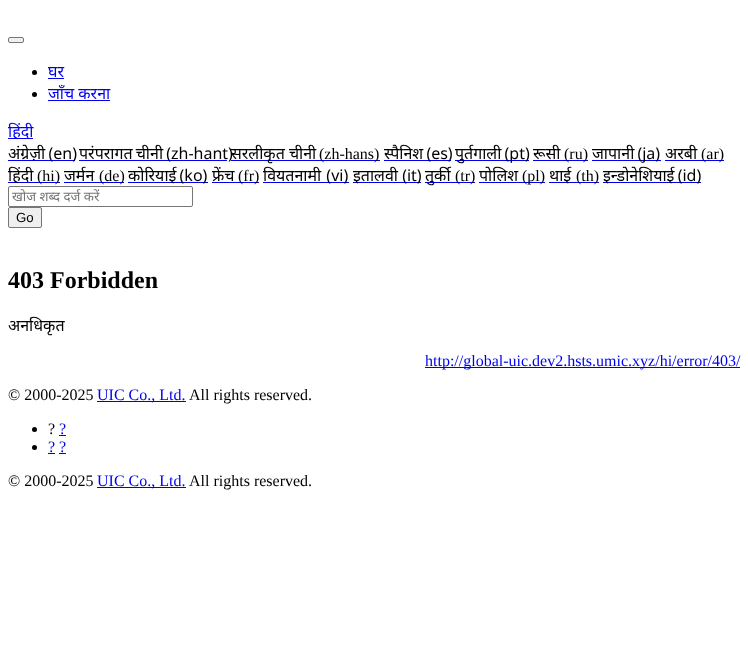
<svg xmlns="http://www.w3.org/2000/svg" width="748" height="661">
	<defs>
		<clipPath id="clip1"><rect x="12" y="188" width="177" height="17" /></clipPath>
	</defs>
	<rect width="100%" height="100%" fill="#FFFFFF" />
	<rect x="8.5" y="37.5" width="15" height="5" rx="1.5" fill="#EFEFEF" stroke="#767676" />
	<circle cx="34.5" cy="72.5" r="2.5" fill="#000000" />
	<text x="48" y="77" font-family="Noto Sans" font-size="16" fill="#0000EE">घर</text>
	<rect x="48" y="78" width="16" height="1" fill="#0000EE" />
	<circle cx="34.5" cy="94.5" r="2.5" fill="#000000" />
	<text x="48" y="99" font-family="Noto Sans" font-size="16" fill="#0000EE">जाँच करना</text>
	<rect x="48" y="100" width="62" height="1" fill="#0000EE" />
	<rect x="8" y="138" width="25" height="1" fill="#0000EE" />
	<text x="8" y="137" font-family="Noto Sans" font-size="16" fill="#0000EE">हिंदी</text>
	<rect x="8" y="160" width="67" height="1" fill="#0000EE" />
	<text x="8" y="159" word-spacing="-1" font-family="Noto Sans" font-size="16" fill="#000000">अंग्रेज़ी (en)</text>
	<rect x="79" y="160" width="148" height="1" fill="#0000EE" />
	<text x="79" y="159" word-spacing="-1" font-family="Noto Sans" font-size="16" fill="#000000">परंपरागत चीनी (zh-hant)</text>
	<rect x="231" y="160" width="149" height="1" fill="#0000EE" />
	<text x="231" y="159" font-family="Noto Sans" font-size="16" fill="#000000">सरलीकृत चीनी</text>
	<text x="319" y="159" font-family="Liberation Serif" font-size="16" fill="#000000">(zh-hans)</text>
	<rect x="384" y="160" width="67" height="1" fill="#0000EE" />
	<text x="384" y="159" word-spacing="-1" font-family="Noto Sans" font-size="16" fill="#000000">स्पैनिश (es)</text>
	<rect x="455" y="160" width="74" height="1" fill="#0000EE" />
	<g font-family="Noto Sans" font-size="16" fill="#000000">
		<text x="455" y="159" word-spacing="-1">पुर्तगाली (pt)</text>
		<text x="533" y="159">रूसी</text>
	</g>
	<rect x="533" y="160" width="55" height="1" fill="#0000EE" />
	<text x="564" y="159" font-family="Liberation Serif" font-size="16" fill="#000000">(ru)</text>
	<rect x="592" y="160" width="69" height="1" fill="#0000EE" />
	<g font-family="Noto Sans" font-size="16" fill="#000000">
		<text x="592" y="159" word-spacing="-1">जापानी (ja)</text>
		<text x="665" y="159">अरबी</text>
	</g>
	<rect x="665" y="160" width="59" height="1" fill="#0000EE" />
	<text x="701" y="159" font-family="Liberation Serif" font-size="16" fill="#000000">(ar)</text>
	<rect x="8" y="182" width="52" height="1" fill="#0000EE" />
	<text x="8" y="181" font-family="Noto Sans" font-size="16" fill="#000000">हिंदी</text>
	<text x="37" y="181" font-family="Liberation Serif" font-size="16" fill="#000000">(hi)</text>
	<text x="64" y="181" font-family="Noto Sans" font-size="16" fill="#000000">जर्मन</text>
	<rect x="64" y="182" width="60" height="1" fill="#0000EE" />
	<text x="99" y="181" font-family="Liberation Serif" font-size="16" fill="#000000">(de)</text>
	<rect x="128" y="182" width="80" height="1" fill="#0000EE" />
	<g font-family="Noto Sans" font-size="16" fill="#000000">
		<text x="128" y="181" word-spacing="-1">कोरियाई (ko)</text>
		<text x="212" y="181">फ्रेंच</text>
	</g>
	<rect x="212" y="182" width="47" height="1" fill="#0000EE" />
	<text x="238" y="181" font-family="Liberation Serif" font-size="16" fill="#000000">(fr)</text>
	<rect x="263" y="182" width="86" height="1" fill="#0000EE" />
	<text x="263" y="181" word-spacing="1" font-family="Noto Sans" font-size="16" fill="#000000">वियतनामी (vi)</text>
	<rect x="353" y="182" width="68" height="1" fill="#0000EE" />
	<text x="353" y="181" font-family="Noto Sans" font-size="16" fill="#000000">इतालवी (it)</text>
	<rect x="425" y="182" width="50" height="1" fill="#0000EE" />
	<text x="425" y="181" font-family="Noto Sans" font-size="16" fill="#000000">तुर्की</text>
	<text x="455" y="181" font-family="Liberation Serif" font-size="16" fill="#000000">(tr)</text>
	<text x="479" y="181" font-family="Noto Sans" font-size="16" fill="#000000">पोलिश</text>
	<rect x="479" y="182" width="66" height="1" fill="#0000EE" />
	<text x="522" y="181" font-family="Liberation Serif" font-size="16" fill="#000000">(pl)</text>
	<rect x="549" y="182" width="50" height="1" fill="#0000EE" />
	<text x="549" y="181" font-family="Noto Sans" font-size="16" fill="#000000">थाई</text>
	<text x="576" y="181" font-family="Liberation Serif" font-size="16" fill="#000000">(th)</text>
	<rect x="603" y="182" width="98" height="1" fill="#0000EE" />
	<text x="603" y="181" word-spacing="-1" font-family="Noto Sans" font-size="16" fill="#000000">इन्डोनेशियाई (id)</text>
	<rect x="8.5" y="186.5" width="184" height="20" rx="1.5" fill="none" stroke="#767676" />
	<g clip-path="url(#clip1)">
		<text x="12" y="201" font-family="Noto Sans" font-size="13.25" fill="#757575">खोज शब्द दर्ज करें</text>
	</g>
	<rect x="8.5" y="207.5" width="33" height="20" rx="1.5" fill="#EFEFEF" stroke="#767676" />
	<text x="16" y="222" font-family="Liberation Sans" font-size="13.25" fill="#000000">Go</text>
	<text x="8" y="288" font-family="Liberation Serif" font-size="24" font-weight="700" fill="#000000">403 Forbidden</text>
	<text x="8" y="331" font-family="Noto Sans" font-size="16" fill="#000000">अनधिकृत</text>
	<rect x="425" y="367" width="315" height="1" fill="#0000EE" />
	<text x="425" y="366" font-family="Liberation Serif" font-size="16" fill="#0000EE">http://global-uic.dev2.hsts.umic.xyz/hi/error/403/</text>
	<text x="8" y="400" font-family="Liberation Serif" font-size="16" fill="#000000">© 2000-2025</text>
	<rect x="97" y="401" width="89" height="1" fill="#0000EE" />
	<text x="97" y="400" font-family="Liberation Serif" font-size="16" fill="#0000EE">UIC Co., Ltd.</text>
	<text x="189" y="400" font-family="Liberation Serif" font-size="16" fill="#000000">All rights reserved.</text>
	<circle cx="34.5" cy="429.5" r="2.5" fill="#000000" />
	<text x="48" y="434" font-family="Liberation Serif" font-size="16" fill="#000000">?</text>
	<text x="59" y="434" font-family="Liberation Serif" font-size="16" fill="#0000EE">?</text>
	<rect x="59" y="435" width="7" height="1" fill="#0000EE" />
	<circle cx="34.5" cy="447.5" r="2.5" fill="#000000" />
	<text x="48" y="452" font-family="Liberation Serif" font-size="16" fill="#0000EE">? ?</text>
	<rect x="48" y="453" width="7" height="1" fill="#0000EE" />
	<rect x="59" y="453" width="7" height="1" fill="#0000EE" />
	<text x="8" y="486" font-family="Liberation Serif" font-size="16" fill="#000000">© 2000-2025</text>
	<rect x="97" y="487" width="89" height="1" fill="#0000EE" />
	<text x="97" y="486" font-family="Liberation Serif" font-size="16" fill="#0000EE">UIC Co., Ltd.</text>
	<text x="189" y="486" font-family="Liberation Serif" font-size="16" fill="#000000">All rights reserved.</text>
</svg>
